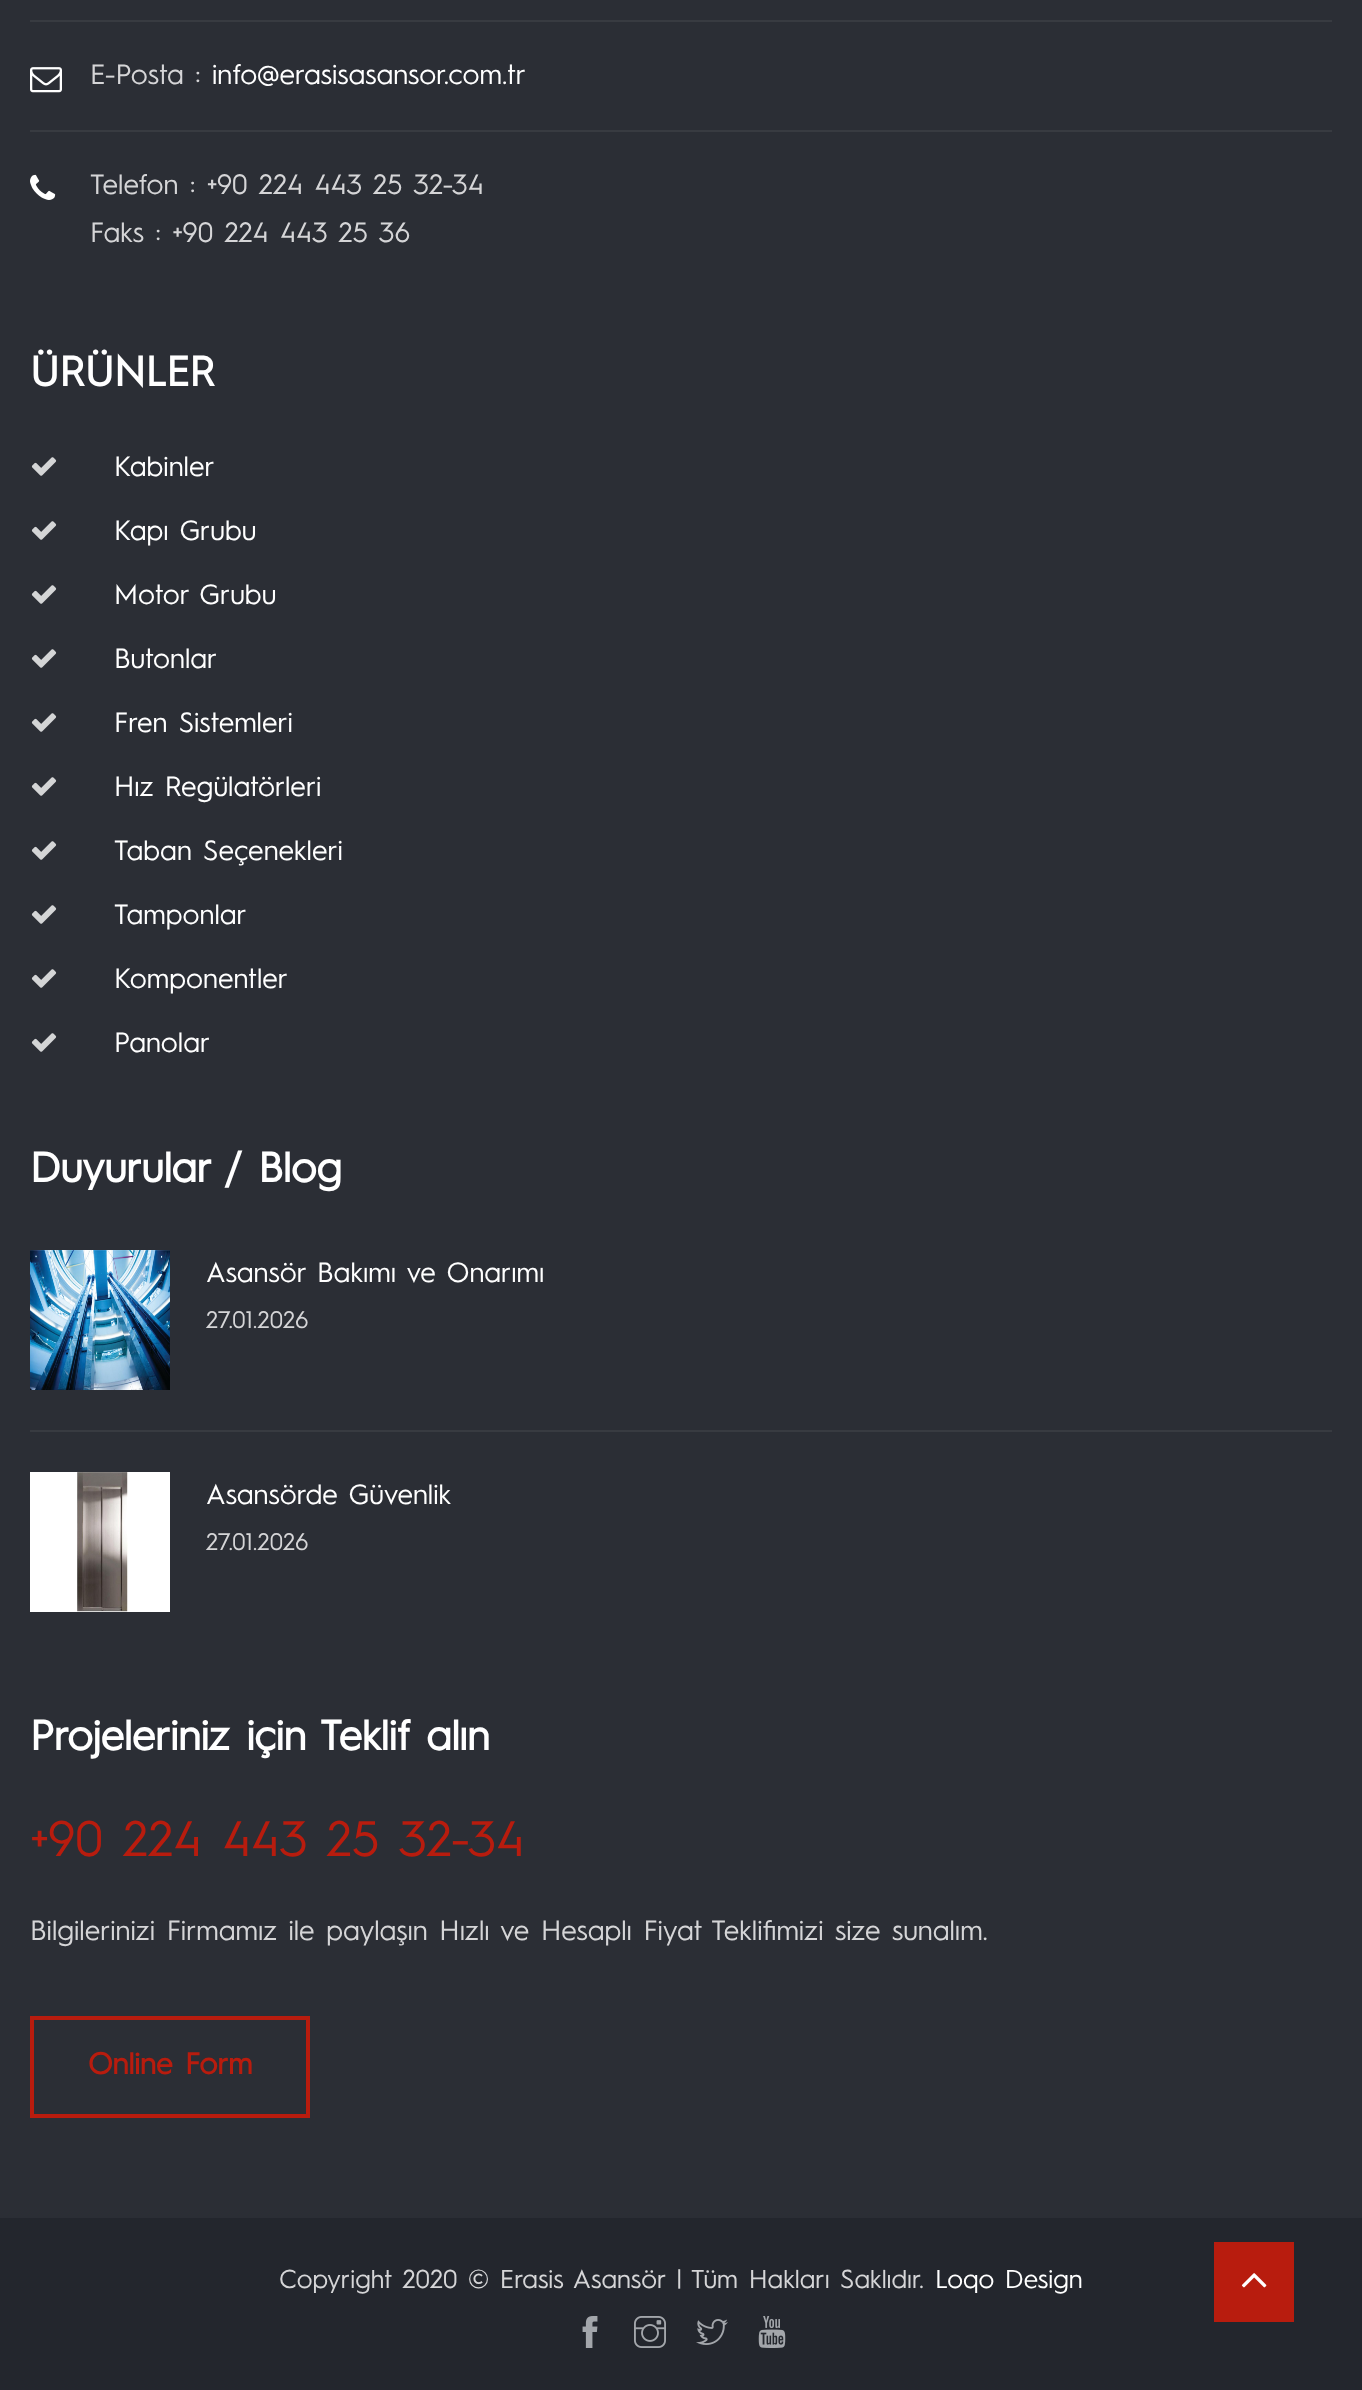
<svg xmlns="http://www.w3.org/2000/svg" width="1362" height="2390">
	<rect width="100%" height="100%" fill="#2B2E35" />
	<rect x="30" y="20" width="1302" height="2" fill="#383B41" />
	<rect x="30" y="130" width="1302" height="2" fill="#383B41" />
	<image x="30" y="67" width="32" height="26" href="assets/img1.png" />
	<text x="90" y="84" font-family="'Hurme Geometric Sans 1'" font-size="28" fill="#D5D5D7">E-Posta :</text>
	<text x="212" y="84" font-family="'Hurme Geometric Sans 1'" font-size="28" fill="#FFFFFF">info@erasisasansor.com.tr</text>
	<image x="30" y="174" width="26" height="26" href="assets/img2.png" />
	<g font-family="'Hurme Geometric Sans 1'" font-size="28" fill="#D5D5D7">
		<text x="90" y="194">Telefon : +90 224 443 25 32-34</text>
		<text x="90" y="242">Faks : +90 224 443 25 36</text>
	</g>
	<text x="30" y="386" font-family="'Hurme Geometric Sans 1'" font-size="42" font-weight="700" fill="#FFFFFF">ÜRÜNLER</text>
	<image x="31" y="457" width="26" height="19" href="assets/img3.png" />
	<text x="114" y="476" font-family="'Hurme Geometric Sans 1'" font-size="28" fill="#FFFFFF">Kabinler</text>
	<image x="31" y="521" width="26" height="19" href="assets/img3.png" />
	<text x="114" y="540" font-family="'Hurme Geometric Sans 1'" font-size="28" fill="#FFFFFF">Kapı Grubu</text>
	<image x="31" y="585" width="26" height="19" href="assets/img3.png" />
	<text x="114" y="604" font-family="'Hurme Geometric Sans 1'" font-size="28" fill="#FFFFFF">Motor Grubu</text>
	<image x="31" y="649" width="26" height="19" href="assets/img3.png" />
	<text x="114" y="668" font-family="'Hurme Geometric Sans 1'" font-size="28" fill="#FFFFFF">Butonlar</text>
	<image x="31" y="713" width="26" height="19" href="assets/img3.png" />
	<text x="114" y="732" font-family="'Hurme Geometric Sans 1'" font-size="28" fill="#FFFFFF">Fren Sistemleri</text>
	<image x="31" y="777" width="26" height="19" href="assets/img3.png" />
	<text x="114" y="796" font-family="'Hurme Geometric Sans 1'" font-size="28" fill="#FFFFFF">Hız Regülatörleri</text>
	<image x="31" y="841" width="26" height="19" href="assets/img3.png" />
	<text x="114" y="860" font-family="'Hurme Geometric Sans 1'" font-size="28" fill="#FFFFFF">Taban Seçenekleri</text>
	<image x="31" y="905" width="26" height="19" href="assets/img3.png" />
	<text x="114" y="924" font-family="'Hurme Geometric Sans 1'" font-size="28" fill="#FFFFFF">Tamponlar</text>
	<image x="31" y="969" width="26" height="19" href="assets/img3.png" />
	<text x="114" y="988" font-family="'Hurme Geometric Sans 1'" font-size="28" fill="#FFFFFF">Komponentler</text>
	<image x="31" y="1033" width="26" height="19" href="assets/img3.png" />
	<text x="114" y="1052" font-family="'Hurme Geometric Sans 1'" font-size="28" fill="#FFFFFF">Panolar</text>
	<text x="30" y="1182" font-family="'Hurme Geometric Sans 1'" font-size="42" font-weight="700" fill="#FFFFFF">Duyurular / Blog</text>
	<rect x="30" y="1430" width="1302" height="2" fill="#383B41" />
	<image x="30" y="1250" width="140" height="140" href="assets/img4.png" />
	<text x="206" y="1282" font-family="'Hurme Geometric Sans 1'" font-size="28" fill="#FFFFFF">Asansör Bakımı ve Onarımı</text>
	<text x="206" y="1328" font-family="'Hurme Geometric Sans 1'" font-size="24" fill="#D5D5D7">27.01.2026</text>
	<image x="30" y="1472" width="140" height="140" href="assets/img5.png" />
	<text x="206" y="1504" font-family="'Hurme Geometric Sans 1'" font-size="28" fill="#FFFFFF">Asansörde Güvenlik</text>
	<text x="206" y="1550" font-family="'Hurme Geometric Sans 1'" font-size="24" fill="#D5D5D7">27.01.2026</text>
	<text x="30" y="1750" font-family="'Hurme Geometric Sans 1'" font-size="42" font-weight="700" fill="#FFFFFF">Projeleriniz için Teklif alın</text>
	<text x="30" y="1856" font-family="'Hurme Geometric Sans 1'" font-size="50" fill="#B81C0E">+90 224 443 25 32-34</text>
	<text x="30" y="1940" font-family="'Hurme Geometric Sans 1'" font-size="28" fill="#D5D5D7">Bilgilerinizi Firmamız ile paylaşın Hızlı ve Hesaplı Fiyat Teklifimizi size sunalım.</text>
	<rect x="32" y="2018" width="276" height="98" fill="none" stroke="#B81C0E" stroke-width="4" />
	<text x="88" y="2074" font-family="'Hurme Geometric Sans 1'" font-size="30" font-weight="700" fill="#B81C0E">Online Form</text>
	<rect x="0" y="2218" width="1362" height="172" fill="#23262D" />
	<text x="279" y="2288" font-family="'Hurme Geometric Sans 1'" font-size="26" fill="#D5D5D7">Copyright 2020 © Erasis Asansör | Tüm Hakları Saklıdır.</text>
	<text x="935" y="2288" font-family="'Hurme Geometric Sans 1'" font-size="26" fill="#FFFFFF">Loqo Design</text>
	<image x="582" y="2316" width="16" height="32" href="assets/img6.png" />
	<image x="634" y="2316" width="32" height="32" href="assets/img7.png" />
	<image x="696" y="2319" width="32" height="26" href="assets/img8.png" />
	<image x="758" y="2316" width="28" height="32" href="assets/img9.png" />
	<rect x="1214" y="2242" width="80" height="80" fill="#B81C0E" />
	<image x="1241" y="2273" width="26" height="15" href="assets/img10.png" />
</svg>
